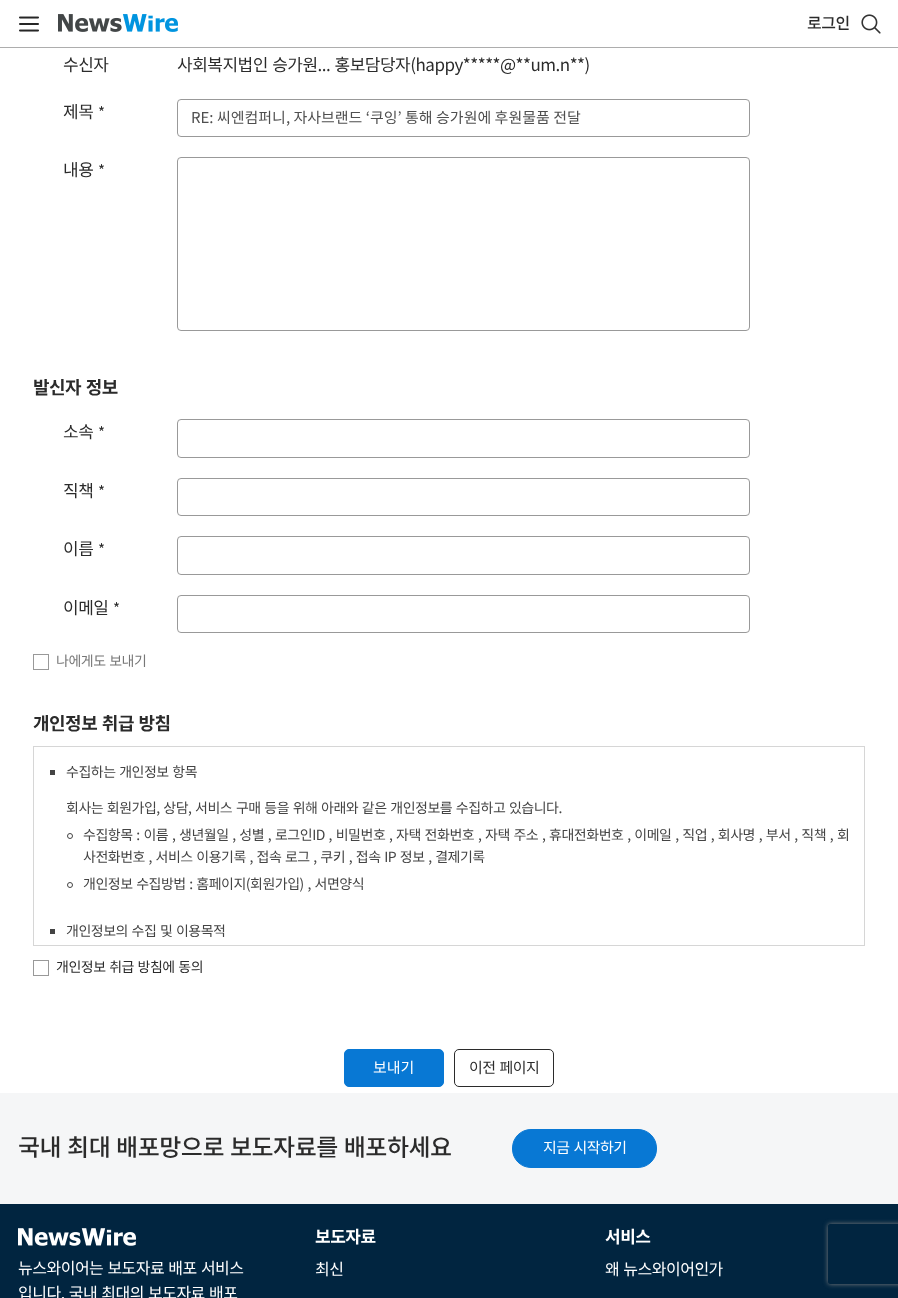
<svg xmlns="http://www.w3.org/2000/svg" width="898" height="1298">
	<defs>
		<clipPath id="clip1"><path d="M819 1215H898V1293H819ZM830 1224H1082C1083 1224 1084 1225 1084 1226V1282C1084 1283 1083 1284 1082 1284H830C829 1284 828 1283 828 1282V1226C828 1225 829 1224 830 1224Z" clip-rule="evenodd" /></clipPath>
	</defs>
	<rect width="100%" height="100%" fill="#FFFFFF" />
	<rect x="0" y="47" width="898" height="1" fill="#ADADAD" />
	<image x="19" y="16" width="20" height="16" href="assets/img1.png" />
	<image x="58" y="14" width="120" height="18" href="assets/img2.png" />
	<text x="807" y="29" font-family="Noto Sans KR" font-size="16" font-weight="500" letter-spacing="-0.5" fill="#2B2B2B">로그인</text>
	<image x="861" y="14" width="20" height="20" href="assets/img3.png" />
	<g font-family="Noto Sans KR" font-size="17" letter-spacing="-0.5" fill="#2B2B2B">
		<text x="63" y="71">수신자</text>
		<text x="177" y="71" word-spacing="1">사회복지법인 승가원... 홍보담당자(happy*****@**um.n**)</text>
		<text x="63" y="118">제목</text>
	</g>
	<text x="98" y="118" font-family="Noto Sans KR" font-size="15" letter-spacing="-0.5" fill="#2B2B2B">*</text>
	<rect x="177.5" y="99.5" width="572" height="37" rx="3.5" fill="none" stroke="#999999" />
	<text x="191" y="123" font-family="Noto Sans KR" font-size="15" fill="#4F4F4F">RE: 씨엔컴퍼니, 자사브랜드 ‘쿠잉’ 통해 승가원에 후원물품 전달</text>
	<text x="63" y="176" font-family="Noto Sans KR" font-size="17" letter-spacing="-0.5" fill="#2B2B2B">내용</text>
	<text x="98" y="176" font-family="Noto Sans KR" font-size="15" letter-spacing="-0.5" fill="#2B2B2B">*</text>
	<rect x="177.5" y="157.5" width="572" height="173" rx="3.5" fill="none" stroke="#999999" />
	<text x="33" y="394" word-spacing="1" font-family="Noto Sans KR" font-size="18" font-weight="700" letter-spacing="-0.5" fill="#2B2B2B">발신자 정보</text>
	<text x="63" y="438" font-family="Noto Sans KR" font-size="17" letter-spacing="-0.5" fill="#2B2B2B">소속</text>
	<text x="98" y="438" font-family="Noto Sans KR" font-size="15" letter-spacing="-0.5" fill="#2B2B2B">*</text>
	<rect x="177.5" y="419.5" width="572" height="38" rx="3.5" fill="none" stroke="#999999" />
	<text x="63" y="497" font-family="Noto Sans KR" font-size="17" letter-spacing="-0.5" fill="#2B2B2B">직책</text>
	<text x="98" y="497" font-family="Noto Sans KR" font-size="15" letter-spacing="-0.5" fill="#2B2B2B">*</text>
	<rect x="177.5" y="478.5" width="572" height="37" rx="3.5" fill="none" stroke="#999999" />
	<text x="63" y="555" font-family="Noto Sans KR" font-size="17" letter-spacing="-0.5" fill="#2B2B2B">이름</text>
	<text x="98" y="555" font-family="Noto Sans KR" font-size="15" letter-spacing="-0.5" fill="#2B2B2B">*</text>
	<rect x="177.5" y="536.5" width="572" height="38" rx="3.5" fill="none" stroke="#999999" />
	<text x="63" y="614" font-family="Noto Sans KR" font-size="17" letter-spacing="-0.5" fill="#2B2B2B">이메일</text>
	<text x="113" y="614" font-family="Noto Sans KR" font-size="15" letter-spacing="-0.5" fill="#2B2B2B">*</text>
	<rect x="177.5" y="595.5" width="572" height="37" rx="3.5" fill="none" stroke="#999999" />
	<rect x="33.5" y="654.5" width="15" height="15" fill="none" stroke="#999999" />
	<text x="56" y="666" word-spacing="1" font-family="Noto Sans KR" font-size="14" letter-spacing="-0.5" fill="#777777">나에게도 보내기</text>
	<text x="33" y="730" word-spacing="1" font-family="Noto Sans KR" font-size="18" font-weight="700" letter-spacing="-0.5" fill="#2B2B2B">개인정보 취급 방침</text>
	<rect x="33.5" y="746.5" width="831" height="199" fill="none" stroke="#D6D6D6" />
	<rect x="50" y="770" width="5" height="5" fill="#444444" />
	<g font-family="Noto Sans KR" font-size="14" letter-spacing="-0.5" fill="#444444">
		<text x="66" y="777" word-spacing="1">수집하는 개인정보 항목</text>
		<text x="66" y="813" word-spacing="1">회사는 회원가입, 상담, 서비스 구매 등을 위해 아래와 같은 개인정보를 수집하고 있습니다.</text>
	</g>
	<circle cx="70" cy="836" r="2.5" fill="none" stroke="#444444" />
	<text x="83" y="840" word-spacing="1" font-family="Noto Sans KR" font-size="14" letter-spacing="-0.47" fill="#444444">수집항목 : 이름 , 생년월일 , 성별 , 로그인ID , 비밀번호 , 자택 전화번호 , 자택 주소 , 휴대전화번호 , 이메일 , 직업 , 회사명 , 부서 , 직책 , 회</text>
	<text x="83" y="862" word-spacing="1" font-family="Noto Sans KR" font-size="14" letter-spacing="-0.5" fill="#444444">사전화번호 , 서비스 이용기록 , 접속 로그 , 쿠키 , 접속 IP 정보 , 결제기록</text>
	<circle cx="70" cy="885" r="2.5" fill="none" stroke="#444444" />
	<text x="83" y="889" word-spacing="1" font-family="Noto Sans KR" font-size="14" letter-spacing="-0.5" fill="#444444">개인정보 수집방법 : 홈페이지(회원가입) , 서면양식</text>
	<rect x="50" y="929" width="5" height="5" fill="#444444" />
	<text x="66" y="936" word-spacing="1" font-family="Noto Sans KR" font-size="14" letter-spacing="-0.5" fill="#444444">개인정보의 수집 및 이용목적</text>
	<rect x="33.5" y="960.5" width="15" height="15" fill="none" stroke="#999999" />
	<text x="56" y="972" word-spacing="1" font-family="Noto Sans KR" font-size="14" letter-spacing="-0.5" fill="#2B2B2B">개인정보 취급 방침에 동의</text>
	<rect x="344.5" y="1049.5" width="99" height="37" rx="4.5" fill="#0878D4" stroke="#0878D4" />
	<text x="373" y="1073" font-family="Noto Sans KR" font-size="15" fill="#FFFFFF">보내기</text>
	<rect x="454.5" y="1049.5" width="99" height="37" rx="4.5" fill="none" stroke="#2B2B2B" />
	<text x="469" y="1073" word-spacing="1" font-family="Noto Sans KR" font-size="15" letter-spacing="-0.5" fill="#2B2B2B">이전 페이지</text>
	<rect x="0" y="1093" width="898" height="111" fill="#F5F6F7" />
	<text x="18" y="1156" word-spacing="1" font-family="Noto Sans KR" font-size="24" font-weight="500" letter-spacing="-0.5" fill="#2B2B2B">국내 최대 배포망으로 보도자료를 배포하세요</text>
	<rect x="512.5" y="1129.5" width="144" height="38" rx="18.5" fill="#0878D4" stroke="#0878D4" />
	<text x="543" y="1153" word-spacing="1" font-family="Noto Sans KR" font-size="15" letter-spacing="-0.5" fill="#FFFFFF">지금 시작하기</text>
	<rect x="0" y="1204" width="898" height="94" fill="#012540" />
	<image x="18" y="1228" width="118" height="18" href="assets/img4.png" />
	<g font-family="Noto Sans KR" font-size="16" letter-spacing="-0.5" fill="#FFFFFF">
		<text x="18" y="1274" word-spacing="1">뉴스와이어는 보도자료 배포 서비스</text>
		<text x="18" y="1299" word-spacing="1">입니다. 국내 최대의 보도자료 배포</text>
	</g>
	<text x="315" y="1243" font-family="Noto Sans KR" font-size="17" font-weight="700" letter-spacing="-0.5" fill="#FFFFFF">보도자료</text>
	<text x="315" y="1275" font-family="Noto Sans KR" font-size="16" letter-spacing="-0.5" fill="#FFFFFF">최신</text>
	<text x="605" y="1243" font-family="Noto Sans KR" font-size="17" font-weight="700" letter-spacing="-0.5" fill="#FFFFFF">서비스</text>
	<text x="605" y="1275" word-spacing="1" font-family="Noto Sans KR" font-size="16" letter-spacing="-0.5" fill="#FFFFFF">왜 뉴스와이어인가</text>
	<g clip-path="url(#clip1)">
		<rect x="828" y="1224" width="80" height="60" rx="2" fill="#808080" filter="blur(2.5px)" />
	</g>
</svg>
